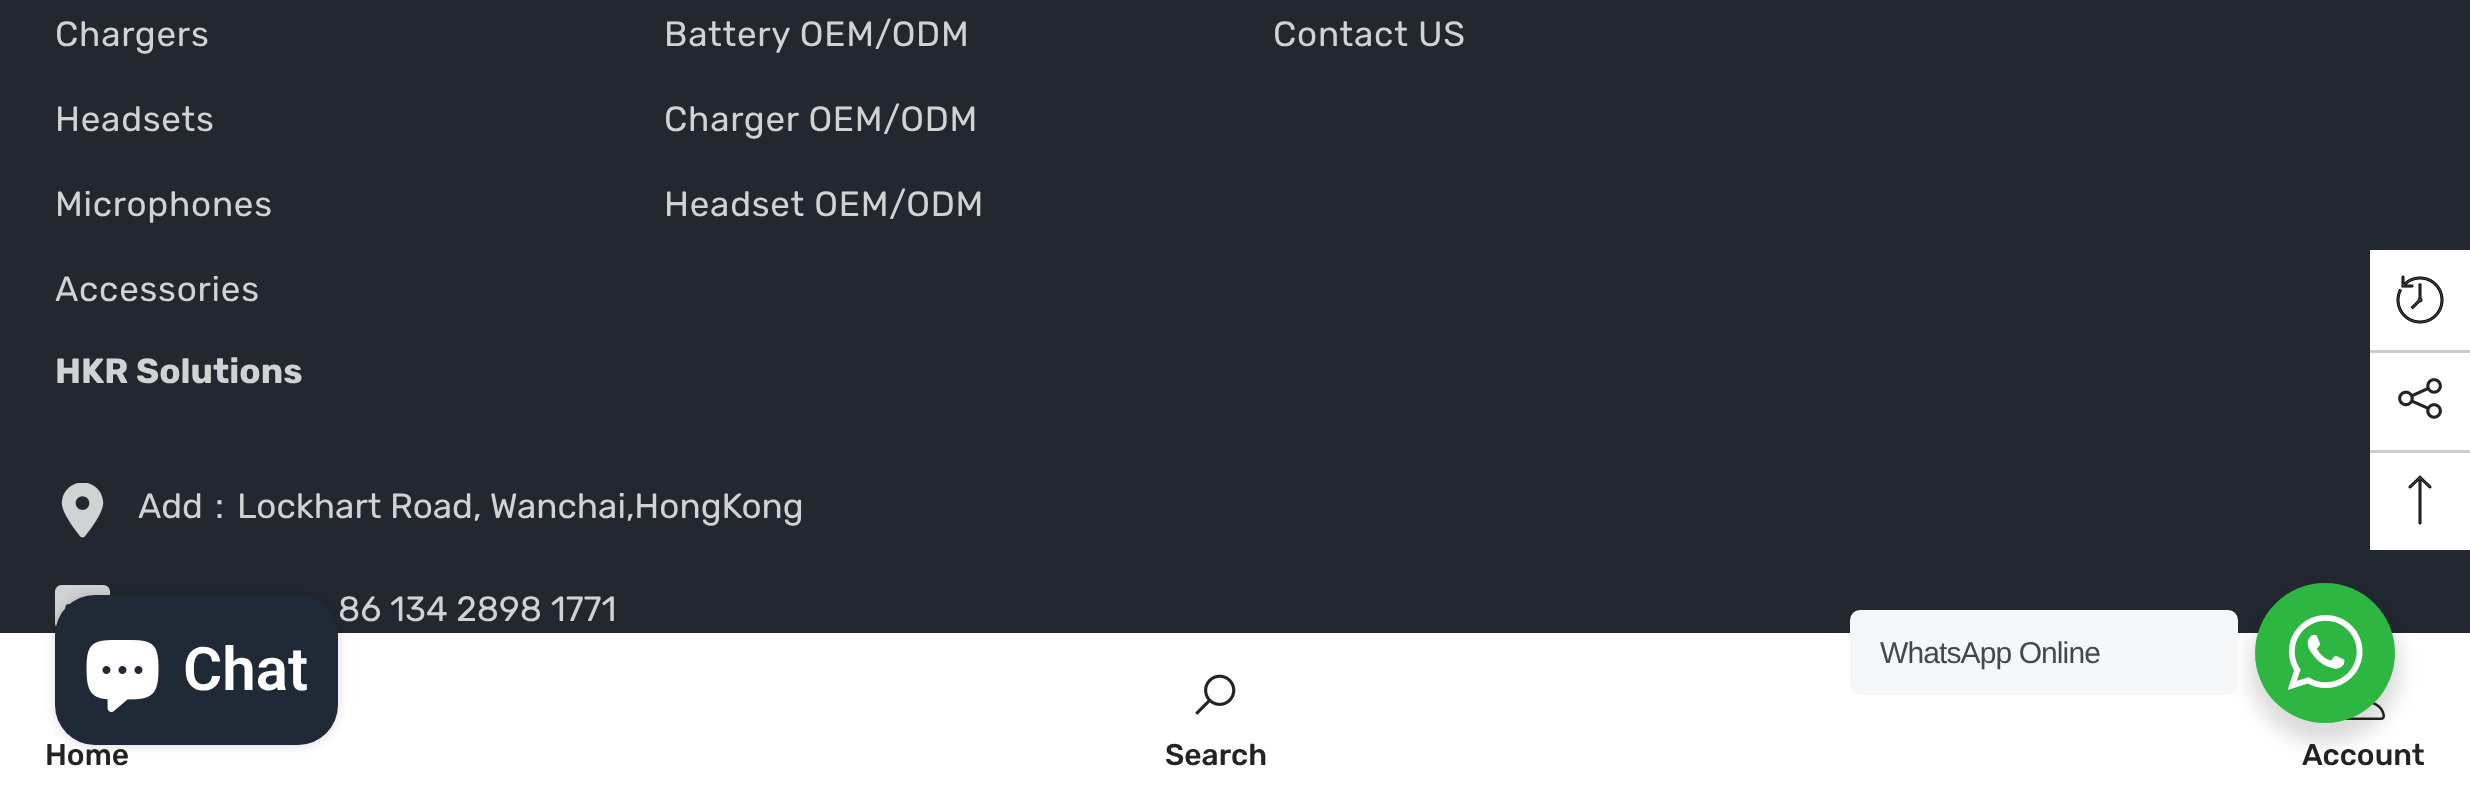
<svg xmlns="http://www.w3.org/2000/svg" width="2470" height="797">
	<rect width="100%" height="100%" fill="#232830" />
	<g font-family="Rubik" font-size="35" letter-spacing="0.75" fill="#D1D2D3">
		<text x="55" y="46">Chargers</text>
		<text x="55" y="131">Headsets</text>
		<text x="55" y="216">Microphones</text>
		<text x="55" y="301">Accessories</text>
		<text x="664" y="46">Battery OEM/ODM</text>
		<text x="664" y="131">Charger OEM/ODM</text>
		<text x="664" y="216">Headset OEM/ODM</text>
		<text x="1273" y="46">Contact US</text>
	</g>
	<text x="55" y="383" font-family="Rubik" font-size="35" font-weight="700" fill="#D1D2D3">HKR Solutions</text>
	<image x="61" y="483" width="43" height="55" href="assets/img1.png" />
	<text x="138" y="518" font-family="Rubik" font-size="35" fill="#D1D2D3">Add</text>
	<text x="202" y="518" font-family="WenQuanYi Zen Hei" font-size="35" font-weight="500" fill="#D1D2D3">：</text>
	<text x="237" y="518" font-family="Rubik" font-size="35" fill="#D1D2D3">Lockhart Road, Wanchai,HongKong</text>
	<image x="55" y="585" width="55" height="42" href="assets/img2.png" />
	<text x="338" y="621" font-family="Rubik" font-size="35" fill="#D1D2D3">86 134 2898 1771</text>
	<rect x="0" y="633" width="2470" height="164" fill="#FFFFFF" />
	<text x="45" y="765" font-family="Rubik" font-size="30" font-weight="500" fill="#232323">Home</text>
	<image x="1195" y="674" width="41" height="41" href="assets/img3.png" />
	<text x="1165" y="765" font-family="Rubik" font-size="30" font-weight="500" fill="#232323">Search</text>
	<image x="2345" y="702" width="40" height="18" href="assets/img4.png" />
	<text x="2302" y="765" font-family="Rubik" font-size="30" font-weight="500" fill="#232323">Account</text>
	<rect x="2370" y="250" width="100" height="300" fill="#FFFFFF" />
	<image x="2396" y="275" width="48" height="49" href="assets/img5.png" />
	<rect x="2370" y="350" width="100" height="3" fill="#CCCCCC" />
	<image x="2398" y="378" width="44" height="41" href="assets/img6.png" />
	<rect x="2370" y="450" width="100" height="3" fill="#CCCCCC" />
	<image x="2408" y="475" width="24" height="50" href="assets/img7.png" />
	<rect x="55" y="595" width="283" height="150" rx="40" fill="#000000" fill-opacity="0.15" filter="blur(6px)" />
	<rect x="55" y="595" width="283" height="150" rx="40" fill="#202A36" />
	<image x="86" y="640" width="73" height="72" href="assets/img8.png" />
	<text x="183" y="690" font-family="Roboto" font-size="60" font-weight="600" fill="#FFFFFF">Chat</text>
	<rect x="2250" y="593" width="150" height="150" rx="75" fill="#000000" fill-opacity="0.14" filter="blur(10px)" />
	<rect x="1850" y="610" width="388" height="85" rx="10" fill="#F5F7F9" />
	<text x="1880" y="663" font-family="Liberation Sans" font-size="30" letter-spacing="-0.9" fill="#43474E">WhatsApp Online</text>
	<circle cx="2325" cy="653" r="70" fill="#2DB742" />
	<image x="2288" y="615" width="75" height="75" href="assets/img9.png" />
</svg>
